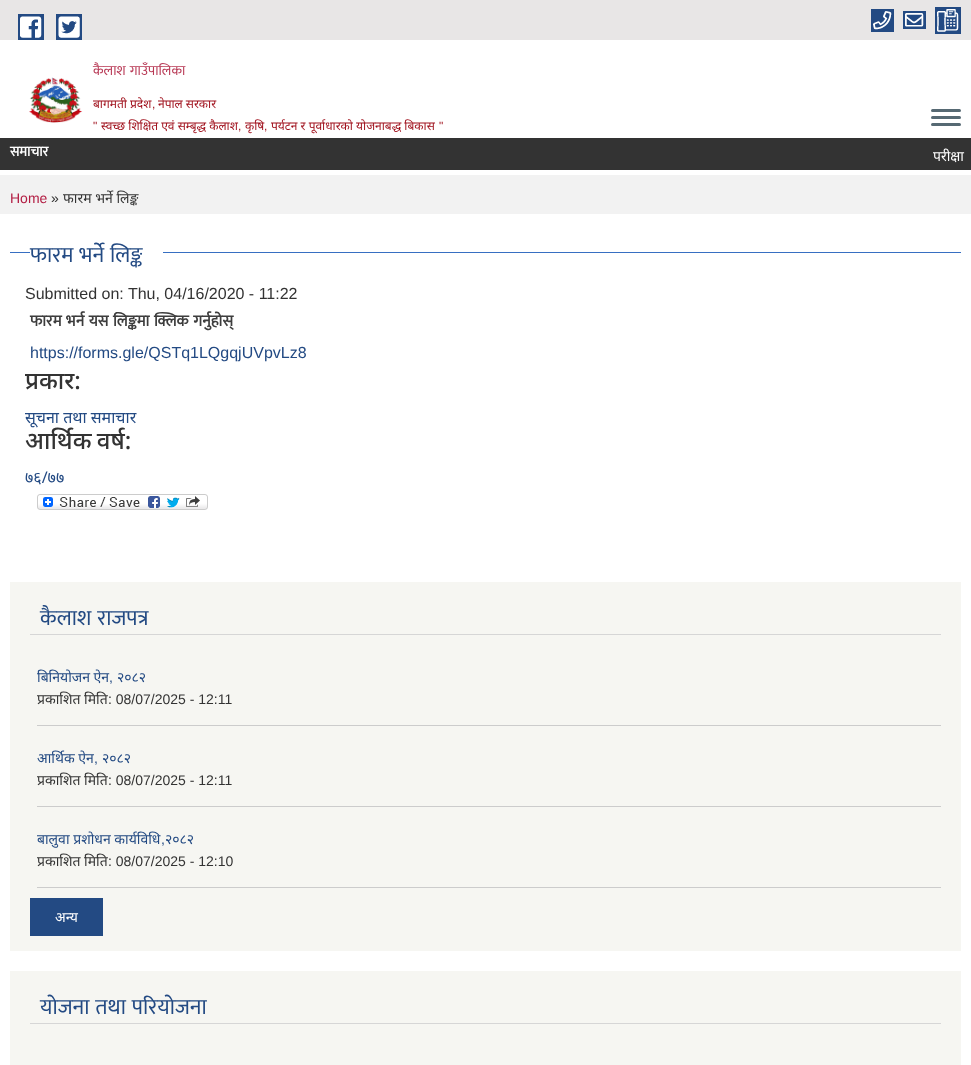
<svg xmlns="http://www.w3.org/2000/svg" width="971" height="1065">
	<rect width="100%" height="100%" fill="#FFFFFF" />
	<rect x="0" y="0" width="971" height="40" fill="#E8E6E6" />
	<rect x="18" y="14" width="26" height="26" fill="#234A83" />
	<rect x="56" y="14" width="26" height="26" fill="#234A83" />
	<image x="20" y="16" width="22" height="22" href="assets/img1.png" />
	<image x="58" y="16" width="22" height="22" href="assets/img2.png" />
	<rect x="871" y="9" width="23" height="23" fill="#234A83" />
	<rect x="935" y="7" width="26" height="27" fill="#234A83" />
	<image x="873" y="11" width="19" height="19" href="assets/img3.png" />
	<rect x="903" y="11" width="23" height="18" fill="#234A83" />
	<image x="937" y="9" width="22" height="23" href="assets/img4.png" />
	<image x="905" y="13" width="19" height="14" href="assets/img5.png" />
	<image x="29" y="77" width="54" height="46" href="assets/img6.png" />
	<text x="93" y="75" word-spacing="1" font-family="Mukta" font-size="14" fill="#B83955">कैलाश गाउँपालिका</text>
	<text x="93" y="108" font-family="Noto Sans" font-size="12" fill="#9E0C18">बागमती प्रदेश</text>
	<text x="152" y="108" font-family="Liberation Sans" font-size="12" fill="#9E0C18">,</text>
	<text x="158" y="108" font-family="Noto Sans" font-size="12" fill="#9E0C18">नेपाल सरकार</text>
	<text x="93" y="130" font-family="Liberation Sans" font-size="12" fill="#9E0C18">"</text>
	<text x="101" y="130" font-family="Noto Sans" font-size="12" fill="#9E0C18">स्वच्छ शिक्षित एवं सम्बृद्ध कैलाश</text>
	<text x="238" y="130" font-family="Liberation Sans" font-size="12" fill="#9E0C18">,</text>
	<g font-family="Noto Sans" font-size="12" fill="#9E0C18">
		<text x="245" y="130">कृषि</text>
		<text x="271" y="130">पर्यटन र पूर्वाधारको योजनाबद्ध बिकास</text>
	</g>
	<g font-family="Liberation Sans" font-size="12" fill="#9E0C18">
		<text x="439" y="130">"</text>
		<text x="264" y="130">,</text>
	</g>
	<rect x="931" y="109" width="30" height="3" rx="1.5" fill="#566973" />
	<rect x="931" y="116" width="30" height="3" rx="1.5" fill="#566973" />
	<rect x="931" y="123" width="30" height="3" rx="1.5" fill="#566973" />
	<rect x="0" y="138" width="971" height="32" fill="#333333" />
	<text x="10" y="156" font-family="Mukta" font-size="14" font-weight="700" fill="#FFFFFF">समाचार</text>
	<text x="933" y="161" font-family="Noto Sans" font-size="14" fill="#FFFFFF">परीक्षा</text>
	<rect x="0" y="175" width="971" height="39" fill="#F2F2F2" />
	<text x="10" y="203" font-family="Liberation Sans" font-size="14" fill="#B21C42">Home</text>
	<text x="51" y="203" font-family="Liberation Sans" font-size="14" fill="#333333">»</text>
	<text x="63" y="203" font-family="Noto Sans" font-size="14" fill="#333333">फारम भर्ने लिङ्क</text>
	<rect x="10" y="252" width="951" height="1" fill="#376FC2" />
	<rect x="30" y="252" width="133" height="1" fill="#FFFFFF" />
	<text x="30" y="262" word-spacing="1" font-family="Mukta" font-size="22" fill="#234A83">फारम भर्ने लिङ्क</text>
	<text x="25" y="299" font-family="Liberation Sans" font-size="16" fill="#333333">Submitted on: Thu, 04/16/2020 - 11:22</text>
	<text x="30" y="326" word-spacing="1" font-family="Mukta" font-size="16" font-weight="700" fill="#3D3D3D">फारम भर्न यस लिङ्कमा क्लिक गर्नुहोस्</text>
	<text x="30" y="358" font-family="Liberation Sans" font-size="16" fill="#234A83">https://forms.gle/QSTq1LQgqjUVpvLz8</text>
	<text x="25" y="389" font-family="Noto Sans" font-size="24" font-weight="500" fill="#333333">प्रकार:</text>
	<text x="25" y="423" font-family="Noto Sans" font-size="16" fill="#234A83">सूचना तथा समाचार</text>
	<text x="25" y="449" word-spacing="-1" font-family="Noto Sans" font-size="24" font-weight="500" fill="#333333">आर्थिक वर्ष:</text>
	<text x="25" y="483" font-family="Noto Sans" font-size="16" fill="#234A83">७६/७७</text>
	<image x="37" y="494" width="171" height="16" href="assets/img7.png" />
	<rect x="10" y="582" width="951" height="369" fill="#F6F6F2" />
	<rect x="30" y="634" width="911" height="1" fill="#D6D6D6" />
	<text x="40" y="625" word-spacing="1" font-family="Mukta" font-size="22" fill="#234A83">कैलाश राजपत्र</text>
	<rect x="37" y="725" width="904" height="1" fill="#CCCCCC" />
	<text x="37" y="682" font-family="Noto Sans" font-size="14" fill="#234A83">बिनियोजन ऐन</text>
	<text x="109" y="682" font-family="Liberation Sans" font-size="14" fill="#234A83">,</text>
	<text x="117" y="682" font-family="Noto Sans" font-size="14" fill="#234A83">२०८२</text>
	<text x="37" y="704" font-family="Noto Sans" font-size="14" fill="#333333">प्रकाशित मिति</text>
	<text x="108" y="704" font-family="Liberation Sans" font-size="14" fill="#333333">: 08/07/2025 - 12:11</text>
	<rect x="37" y="806" width="904" height="1" fill="#CCCCCC" />
	<text x="37" y="763" font-family="Noto Sans" font-size="14" fill="#234A83">आर्थिक ऐन</text>
	<text x="94" y="763" font-family="Liberation Sans" font-size="14" fill="#234A83">,</text>
	<text x="102" y="763" font-family="Noto Sans" font-size="14" fill="#234A83">२०८२</text>
	<text x="37" y="785" font-family="Noto Sans" font-size="14" fill="#333333">प्रकाशित मिति</text>
	<text x="108" y="785" font-family="Liberation Sans" font-size="14" fill="#333333">: 08/07/2025 - 12:11</text>
	<rect x="37" y="887" width="904" height="1" fill="#CCCCCC" />
	<text x="37" y="844" font-family="Noto Sans" font-size="14" fill="#234A83">बालुवा प्रशोधन कार्यविधि</text>
	<text x="161" y="844" font-family="Liberation Sans" font-size="14" fill="#234A83">,</text>
	<text x="165" y="844" font-family="Noto Sans" font-size="14" fill="#234A83">२०८२</text>
	<text x="37" y="866" font-family="Noto Sans" font-size="14" fill="#333333">प्रकाशित मिति</text>
	<text x="108" y="866" font-family="Liberation Sans" font-size="14" fill="#333333">: 08/07/2025 - 12:10</text>
	<rect x="30" y="898" width="73" height="38" fill="#234A83" />
	<text x="55" y="922" font-family="Noto Sans" font-size="14" fill="#FFFFFF">अन्य</text>
	<rect x="10" y="971" width="951" height="94" fill="#F6F6F2" />
	<rect x="30" y="1023" width="911" height="1" fill="#D6D6D6" />
	<text x="40" y="1014" word-spacing="1" font-family="Mukta" font-size="22" fill="#234A83">योजना तथा परियोजना</text>
</svg>
